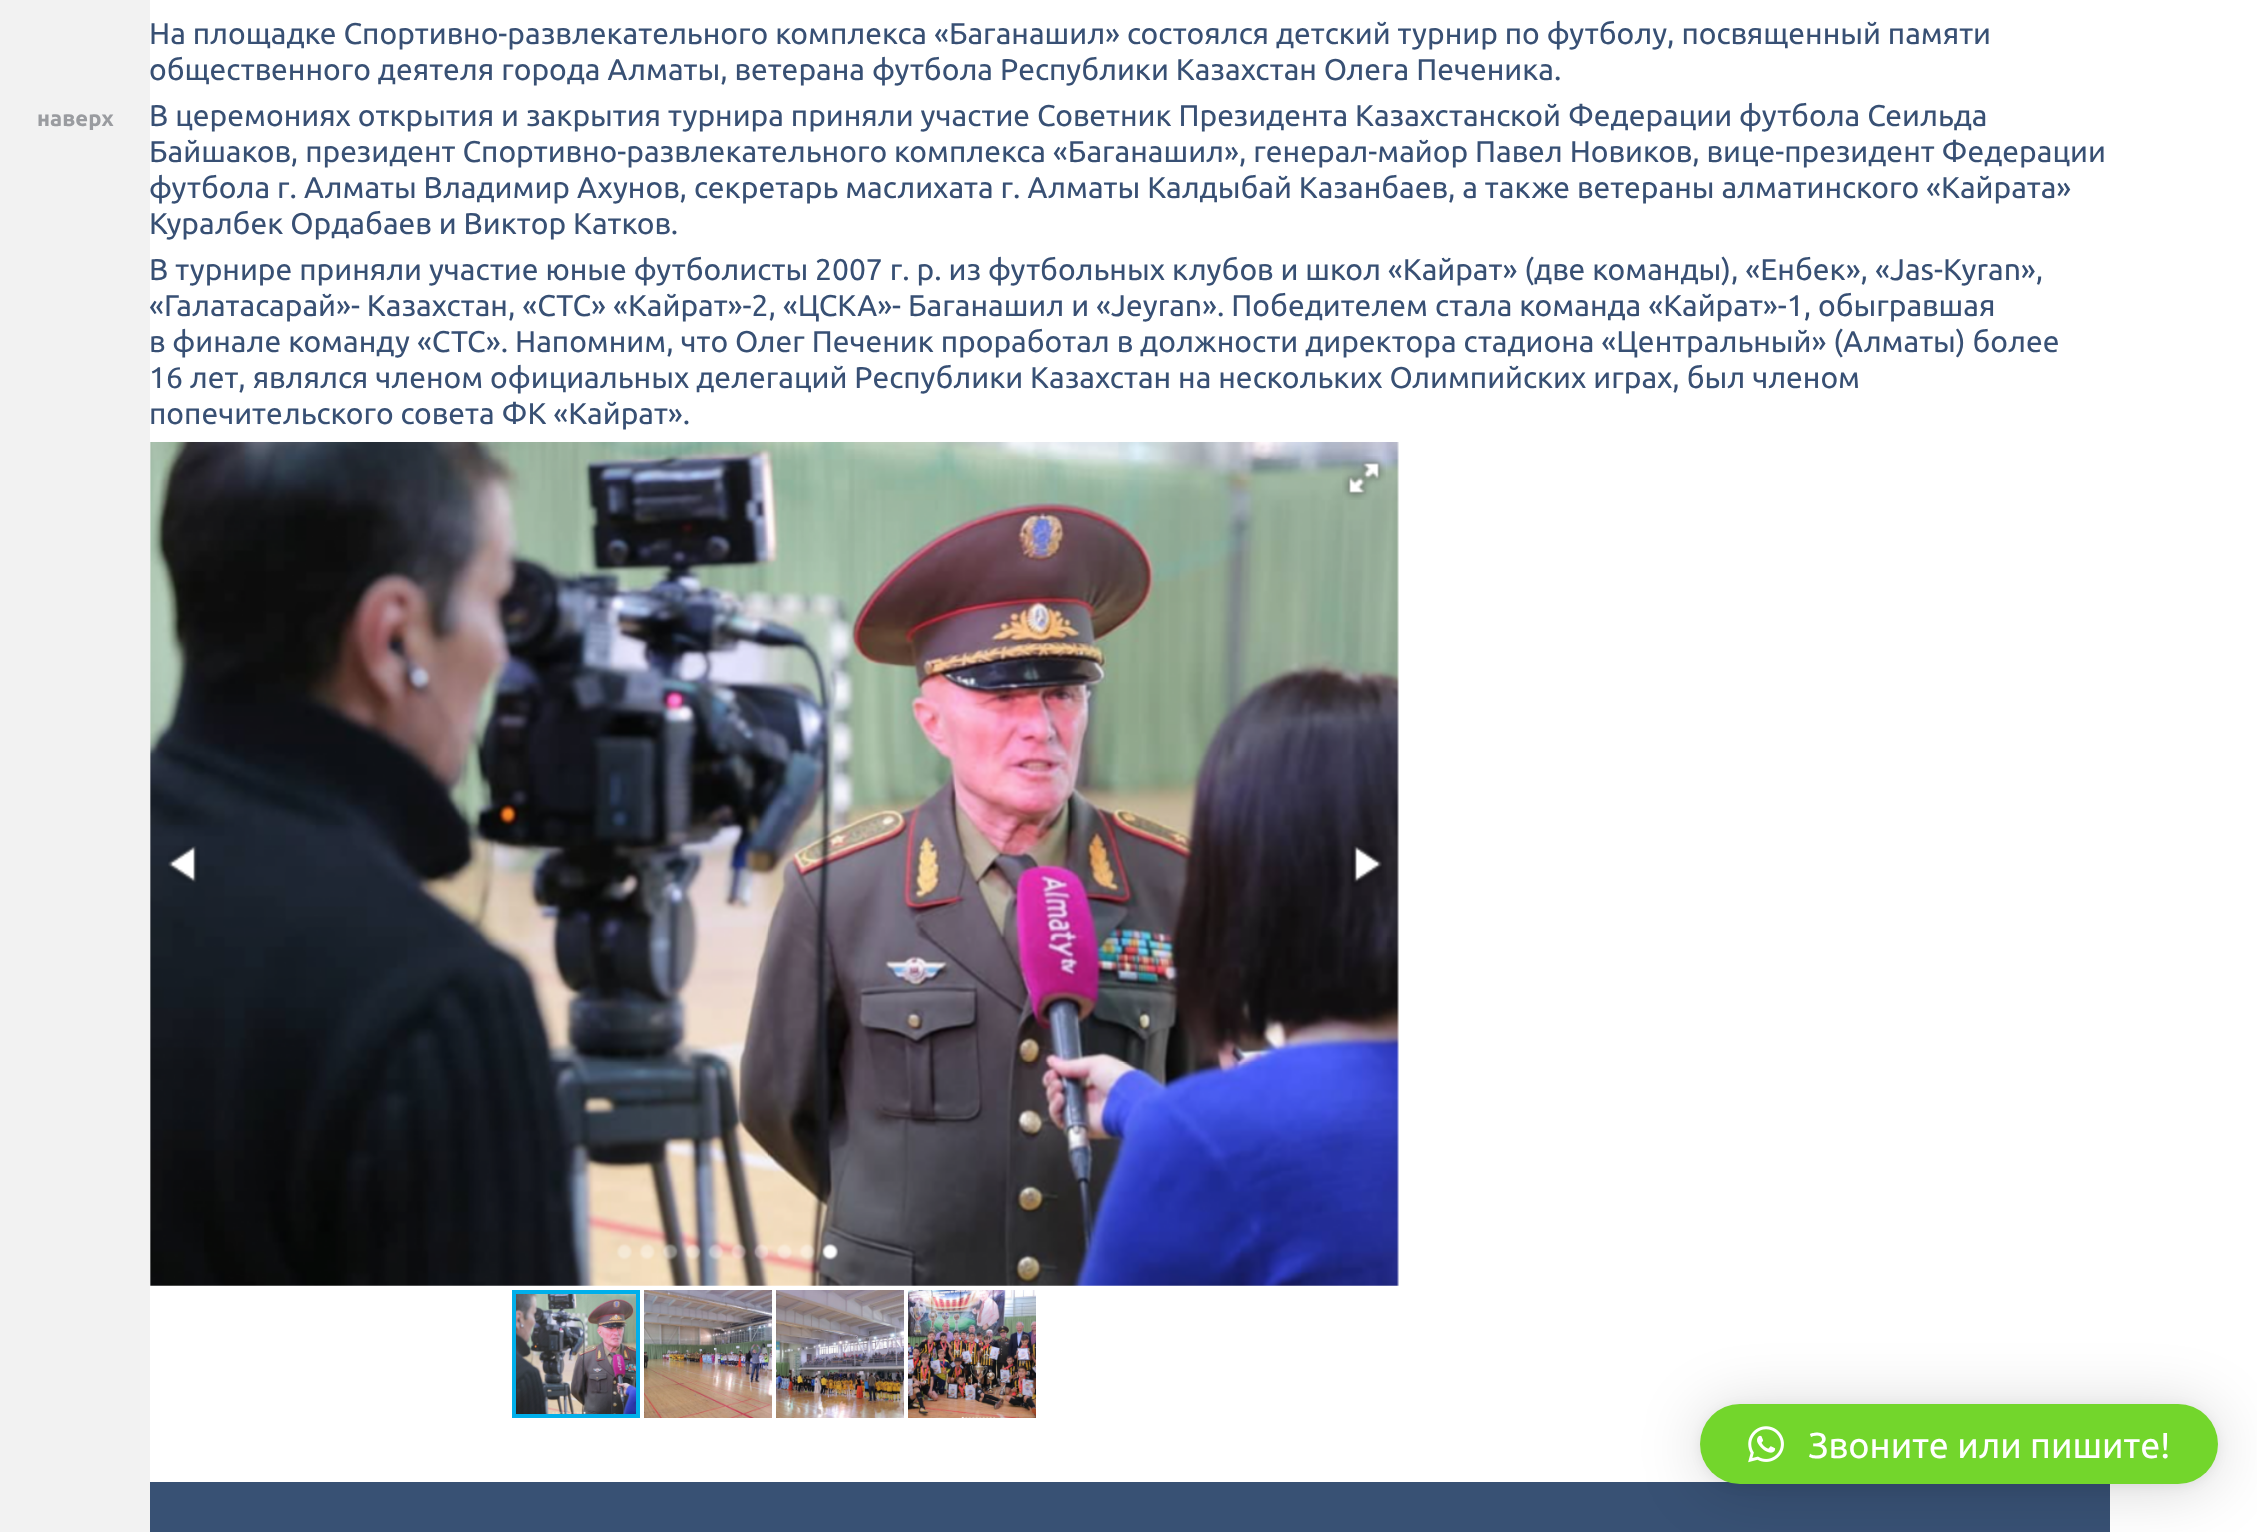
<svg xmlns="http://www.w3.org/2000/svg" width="2257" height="1532">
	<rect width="100%" height="100%" fill="#FFFFFF" />
	<text x="149" y="316" font-family="Ubuntu" font-size="30" fill="#385074">«Галатасарай»- Казахстан, «СТС» «Кайрат»-2, «ЦСКА»- Баганашил и «Jeyran». Победителем стала команда «Кайрат»-1, обыгравшая</text>
	<rect x="0" y="0" width="150" height="1532" fill="#F2F2F2" />
	<text x="37" y="126" font-family="Ubuntu" font-size="22" font-weight="700" fill="#9A9CA0">наверх</text>
	<g font-family="Ubuntu" font-size="30" fill="#385074">
		<text x="149" y="44">На площадке Спортивно-развлекательного комплекса «Баганашил» состоялся детский турнир по футболу, посвященный памяти</text>
		<text x="149" y="80">общественного деятеля города Алматы, ветерана футбола Республики Казахстан Олега Печеника.</text>
		<text x="149" y="126">В церемониях открытия и закрытия турнира приняли участие Советник Президента Казахстанской Федерации футбола Сеильда</text>
		<text x="149" y="162">Байшаков, президент Спортивно-развлекательного комплекса «Баганашил», генерал-майор Павел Новиков, вице-президент Федерации</text>
		<text x="149" y="198">футбола г. Алматы Владимир Ахунов, секретарь маслихата г. Алматы Калдыбай Казанбаев, а также ветераны алматинского «Кайрата»</text>
		<text x="149" y="234">Куралбек Ордабаев и Виктор Катков.</text>
		<text x="149" y="280">В турнире приняли участие юные футболисты 2007 г. р. из футбольных клубов и школ «Кайрат» (две команды), «Енбек», «Jas-Kyran»,</text>
		<text x="149" y="352">в финале команду «СТС». Напомним, что Олег Печеник проработал в должности директора стадиона «Центральный» (Алматы) более</text>
		<text x="149" y="388">16 лет, являлся членом официальных делегаций Республики Казахстан на нескольких Олимпийских играх, был членом</text>
		<text x="149" y="424">попечительского совета ФК «Кайрат».</text>
	</g>
	<image x="150" y="442" width="1249" height="844" href="assets/img1.png" />
	<image x="1342" y="456" width="44" height="44" href="assets/img2.png" />
	<image x="168" y="846" width="32" height="37" href="assets/img3.png" />
	<image x="1351" y="846" width="31" height="37" href="assets/img4.png" />
	<image x="516" y="1294" width="120" height="120" href="assets/img8.png" />
	<rect x="514" y="1292" width="124" height="124" fill="none" stroke="#00AFEA" stroke-width="4" />
	<image x="644" y="1290" width="128" height="128" href="assets/img5.png" />
	<image x="776" y="1290" width="128" height="128" href="assets/img6.png" />
	<image x="908" y="1290" width="128" height="128" href="assets/img7.png" />
	<rect x="150" y="1482" width="1960" height="50" fill="#385174" />
	<rect x="1700" y="1408" width="518" height="80" rx="40" fill="#000000" fill-opacity="0.16" filter="blur(32px)" />
	<rect x="1700" y="1406" width="518" height="80" rx="40" fill="#000000" fill-opacity="0.06" filter="blur(6px)" />
	<rect x="1700" y="1404" width="518" height="80" rx="40" fill="#73D62C" />
	<image x="1748" y="1426" width="36" height="37" href="assets/img9.png" />
	<text x="1808" y="1458" font-family="Ubuntu" font-size="36" fill="#FFFFFF">Звоните или пишите!</text>
</svg>
